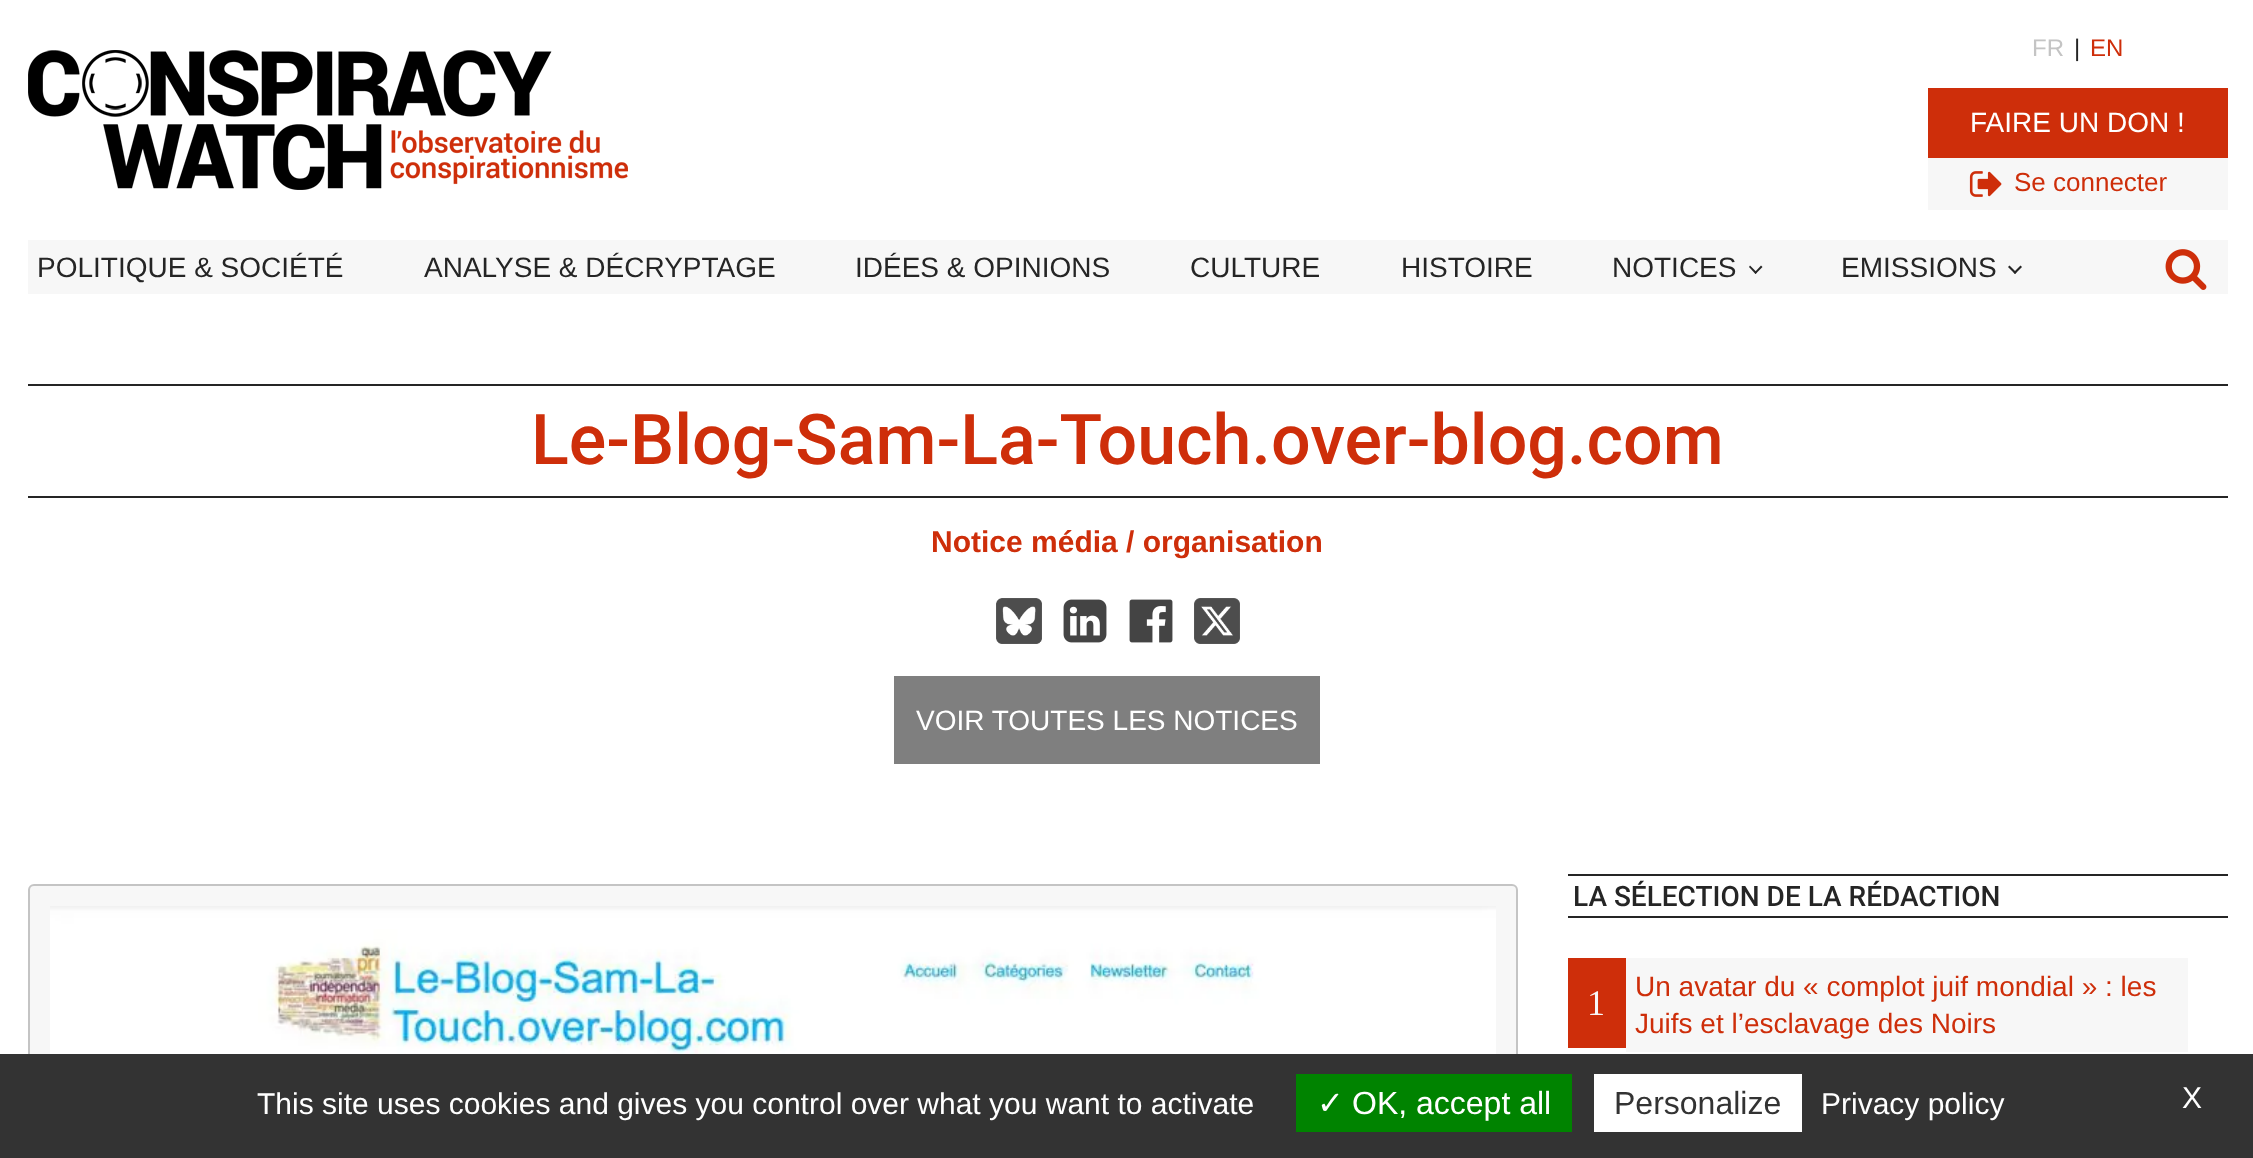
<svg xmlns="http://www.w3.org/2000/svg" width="2253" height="1158">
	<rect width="100%" height="100%" fill="#FFFFFF" />
	<image x="28" y="50" width="600" height="140" href="assets/img1.png" />
	<text x="2032" y="56" font-family="Liberation Sans" font-size="24" fill="#C4C4C4">FR</text>
	<text x="2074" y="56" font-family="Liberation Sans" font-size="24" fill="#252525">|</text>
	<text x="2090" y="56" font-family="Liberation Sans" font-size="24" fill="#CE2E0A">EN</text>
	<rect x="1928" y="88" width="300" height="70" fill="#CE2E0A" />
	<text x="1970" y="132" font-family="Liberation Sans" font-size="28" fill="#FFFFFF">FAIRE UN DON !</text>
	<rect x="1928" y="158" width="300" height="52" fill="#F7F7F7" />
	<image x="1969" y="171" width="33" height="26" href="assets/img2.png" />
	<text x="2014" y="191" font-family="Liberation Sans" font-size="26" fill="#CE2E0A">Se connecter</text>
	<rect x="28" y="240" width="2200" height="54" fill="#F7F7F7" />
	<g font-family="Liberation Sans" font-size="28" fill="#252525">
		<text x="37" y="277">POLITIQUE &amp; SOCIÉTÉ</text>
		<text x="424" y="277">ANALYSE &amp; DÉCRYPTAGE</text>
		<text x="855" y="277">IDÉES &amp; OPINIONS</text>
		<text x="1190" y="277">CULTURE</text>
		<text x="1401" y="277">HISTOIRE</text>
		<text x="1612" y="277">NOTICES</text>
	</g>
	<path d="M1762.5 267L1755.5 274L1754.5 272.5L1761 265.5Z" fill="#252525" />
	<path d="M1757 272.5L1755.5 274L1749 267L1750 265.5Z" fill="#252525" />
	<text x="1841" y="277" font-family="Liberation Sans" font-size="28" fill="#252525">EMISSIONS</text>
	<path d="M2022 267L2015 274L2013.5 272.5L2020.5 265.5Z" fill="#252525" />
	<path d="M2016.5 272.5L2015 274L2008 267L2009.5 265.5Z" fill="#252525" />
	<image x="2165" y="249" width="42" height="41" href="assets/img3.png" />
	<rect x="28" y="384" width="2200" height="2" fill="#252525" />
	<rect x="28" y="496" width="2200" height="2" fill="#252525" />
	<text x="531" y="464" font-family="Roboto" font-size="70" font-weight="500" fill="#CE2E0A">Le-Blog-Sam-La-Touch.over-blog.com</text>
	<text x="931" y="552" font-family="Liberation Sans" font-size="30" font-weight="700" fill="#CE2E0A">Notice média / organisation</text>
	<image x="996" y="598" width="46" height="46" href="assets/img4.png" />
	<image x="1063" y="599" width="44" height="44" href="assets/img5.png" />
	<image x="1129" y="599" width="44" height="44" href="assets/img6.png" />
	<image x="1194" y="598" width="46" height="46" href="assets/img7.png" />
	<rect x="894" y="676" width="426" height="88" fill="#7F7F7F" />
	<text x="916" y="730" font-family="Liberation Sans" font-size="28" fill="#FFFFFF">VOIR TOUTES LES NOTICES</text>
	<rect x="29" y="885" width="1488" height="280" rx="5" fill="#F7F7F7" stroke="#C4C4C4" stroke-width="2" />
	<image x="50" y="906" width="1446" height="148" href="assets/img8.png" />
	<rect x="1568" y="874" width="660" height="2" fill="#252525" />
	<rect x="1568" y="916" width="660" height="2" fill="#252525" />
	<text x="1573" y="906" font-family="Roboto" font-size="28" font-weight="500" fill="#252525">LA SÉLECTION DE LA RÉDACTION</text>
	<rect x="1568" y="958" width="58" height="90" fill="#CE2E0A" />
	<text x="1587" y="1015" font-family="Liberation Serif" font-size="36" fill="#F7F7F7">1</text>
	<rect x="1626" y="958" width="562" height="94" fill="#F7F7F7" />
	<g font-family="Liberation Sans" font-size="28" fill="#CE2E0A">
		<text x="1635" y="996">Un avatar du « complot juif mondial » : les</text>
		<text x="1635" y="1033">Juifs et l’esclavage des Noirs</text>
	</g>
	<rect x="0" y="1054" width="2253" height="104" fill="#333333" />
	<text x="257" y="1114" font-family="Liberation Sans" font-size="30" fill="#FFFFFF">This site uses cookies and gives you control over what you want to activate</text>
	<rect x="1296" y="1074" width="276" height="58" fill="#008300" />
	<text x="1317" y="1114" font-family="DejaVu Sans" font-size="32" fill="#FFFFFF">✓</text>
	<text x="1352" y="1114" font-family="Liberation Sans" font-size="32" fill="#FFFFFF">OK, accept all</text>
	<rect x="1594" y="1074" width="208" height="58" fill="#FFFFFF" />
	<text x="1614" y="1114" font-family="Liberation Sans" font-size="32" fill="#333333">Personalize</text>
	<g font-family="Liberation Sans" font-size="30" fill="#FFFFFF">
		<text x="1821" y="1114">Privacy policy</text>
		<text x="2182" y="1108">X</text>
	</g>
</svg>
